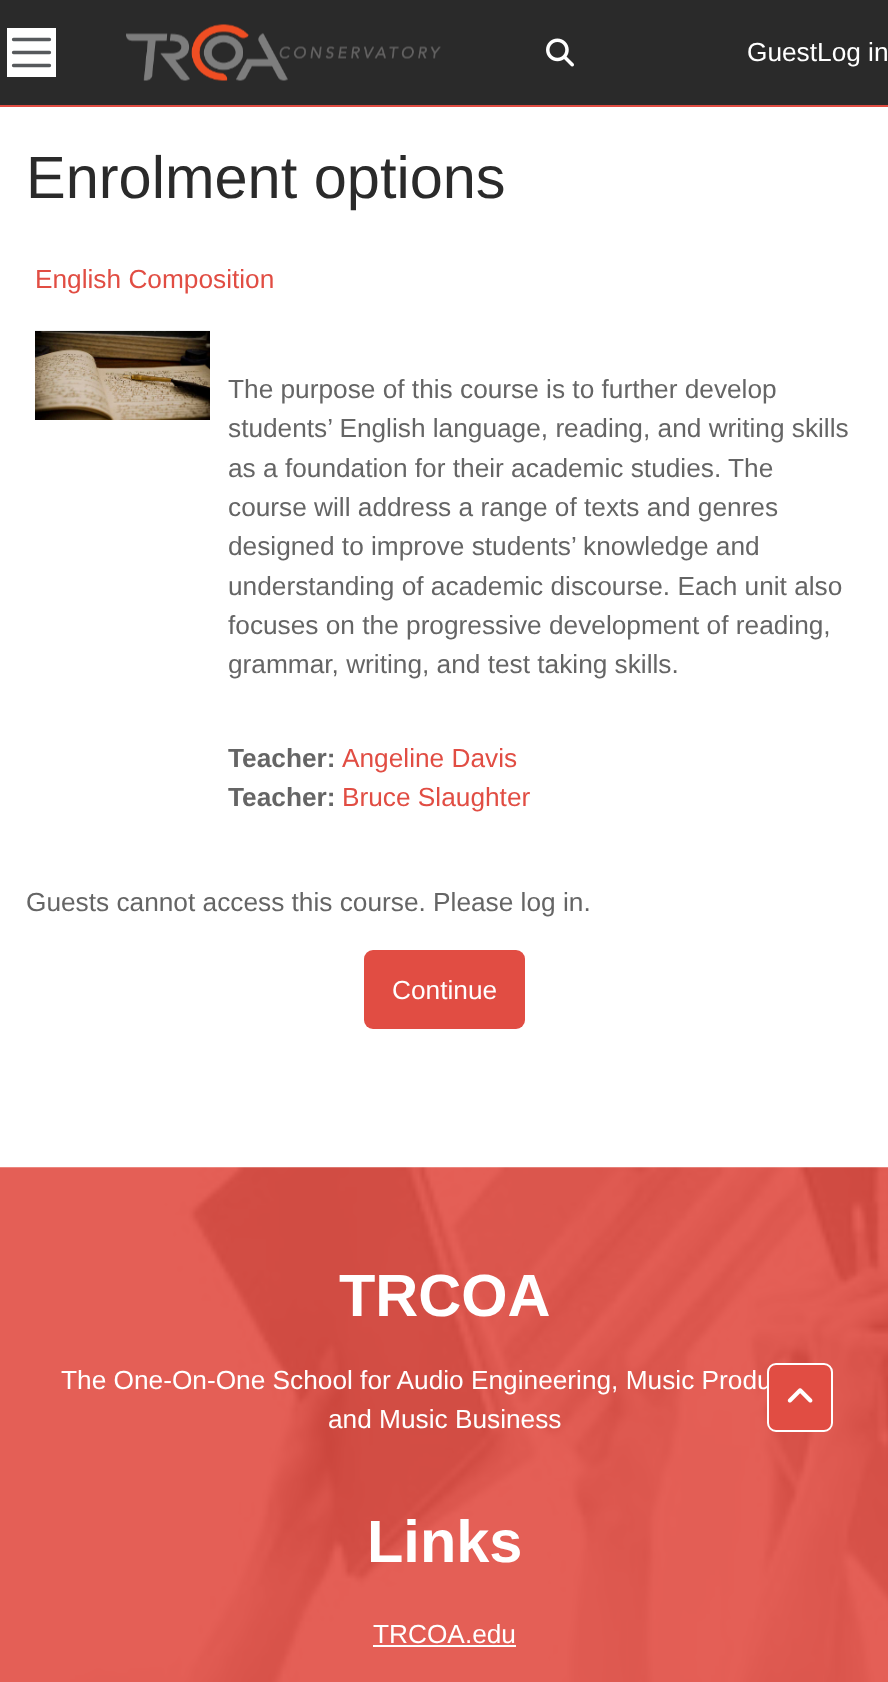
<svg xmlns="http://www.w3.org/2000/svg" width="888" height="1682">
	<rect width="100%" height="100%" fill="#FFFFFF" />
	<rect x="0" y="0" width="888" height="105" fill="#2A2A2A" />
	<rect x="0" y="105" width="888" height="2" fill="#E04C42" />
	<rect x="7" y="28" width="49" height="49" fill="#FFFFFF" />
	<path d="M13.5 39.5H49.5M13.5 52.5H49.5M13.5 65.5H49.5" fill="none" stroke="#56595C" stroke-width="3.3" stroke-linecap="round" />
	<image x="126" y="24" width="315" height="57" href="assets/img1.png" />
	<image x="546" y="38" width="28" height="29" href="assets/img2.png" />
	<text x="747" y="61" font-family="Liberation Sans" font-size="26.25" fill="#FFFFFF">GuestLog in</text>
	<text x="26" y="198" font-family="Liberation Sans" font-size="59.5" fill="#2A2A2A">Enrolment options</text>
	<text x="35" y="288" font-family="Liberation Sans" font-size="26.25" fill="#E14D43">English Composition</text>
	<image x="35" y="330" width="175" height="90" href="assets/img3.png" />
	<g font-family="Liberation Sans" font-size="26.25" fill="#656565">
		<text x="228" y="398">The purpose of this course is to further develop</text>
		<text x="228" y="437">students’ English language, reading, and writing skills</text>
		<text x="228" y="477">as a foundation for their academic studies. The</text>
		<text x="228" y="516">course will address a range of texts and genres</text>
		<text x="228" y="555">designed to improve students’ knowledge and</text>
		<text x="228" y="595">understanding of academic discourse. Each unit also</text>
		<text x="228" y="634">focuses on the progressive development of reading,</text>
		<text x="228" y="673">grammar, writing, and test taking skills.</text>
	</g>
	<text x="228" y="767" font-family="Liberation Sans" font-size="26.25" font-weight="700" fill="#656565">Teacher:</text>
	<text x="342" y="767" font-family="Liberation Sans" font-size="26.25" fill="#E14D43">Angeline Davis</text>
	<text x="228" y="806" font-family="Liberation Sans" font-size="26.25" font-weight="700" fill="#656565">Teacher:</text>
	<text x="342" y="806" font-family="Liberation Sans" font-size="26.25" fill="#E14D43">Bruce Slaughter</text>
	<text x="26" y="911" font-family="Liberation Sans" font-size="26.25" fill="#656565">Guests cannot access this course. Please log in.</text>
	<rect x="364" y="950" width="161" height="79" rx="9" fill="#E14D43" />
	<text x="392" y="999" font-family="Liberation Sans" font-size="26.25" fill="#FFFFFF">Continue</text>
	<image x="0" y="1167" width="888" height="515" href="assets/img4.png" />
	<text x="339" y="1316" font-family="Liberation Sans" font-size="59.5" font-weight="700" fill="#FFFFFF">TRCOA</text>
	<g font-family="Liberation Sans" font-size="26.25" fill="#FFFFFF">
		<text x="61" y="1389">The One-On-One School for Audio Engineering, Music Produ</text>
		<text x="328" y="1428">and Music Business</text>
	</g>
	<text x="367" y="1562" font-family="Liberation Sans" font-size="59.5" font-weight="700" fill="#FFFFFF">Links</text>
	<text x="373" y="1643" font-family="Liberation Sans" font-size="26.25" fill="#FFFFFF">TRCOA.edu</text>
	<rect x="373" y="1645" width="143" height="2" fill="#FFFFFF" />
	<rect x="768" y="1364" width="64" height="67" rx="8" fill="#E14D43" stroke="#FFFFFF" stroke-width="2" />
	<image x="787" y="1388" width="26" height="15" href="assets/img5.png" />
</svg>
